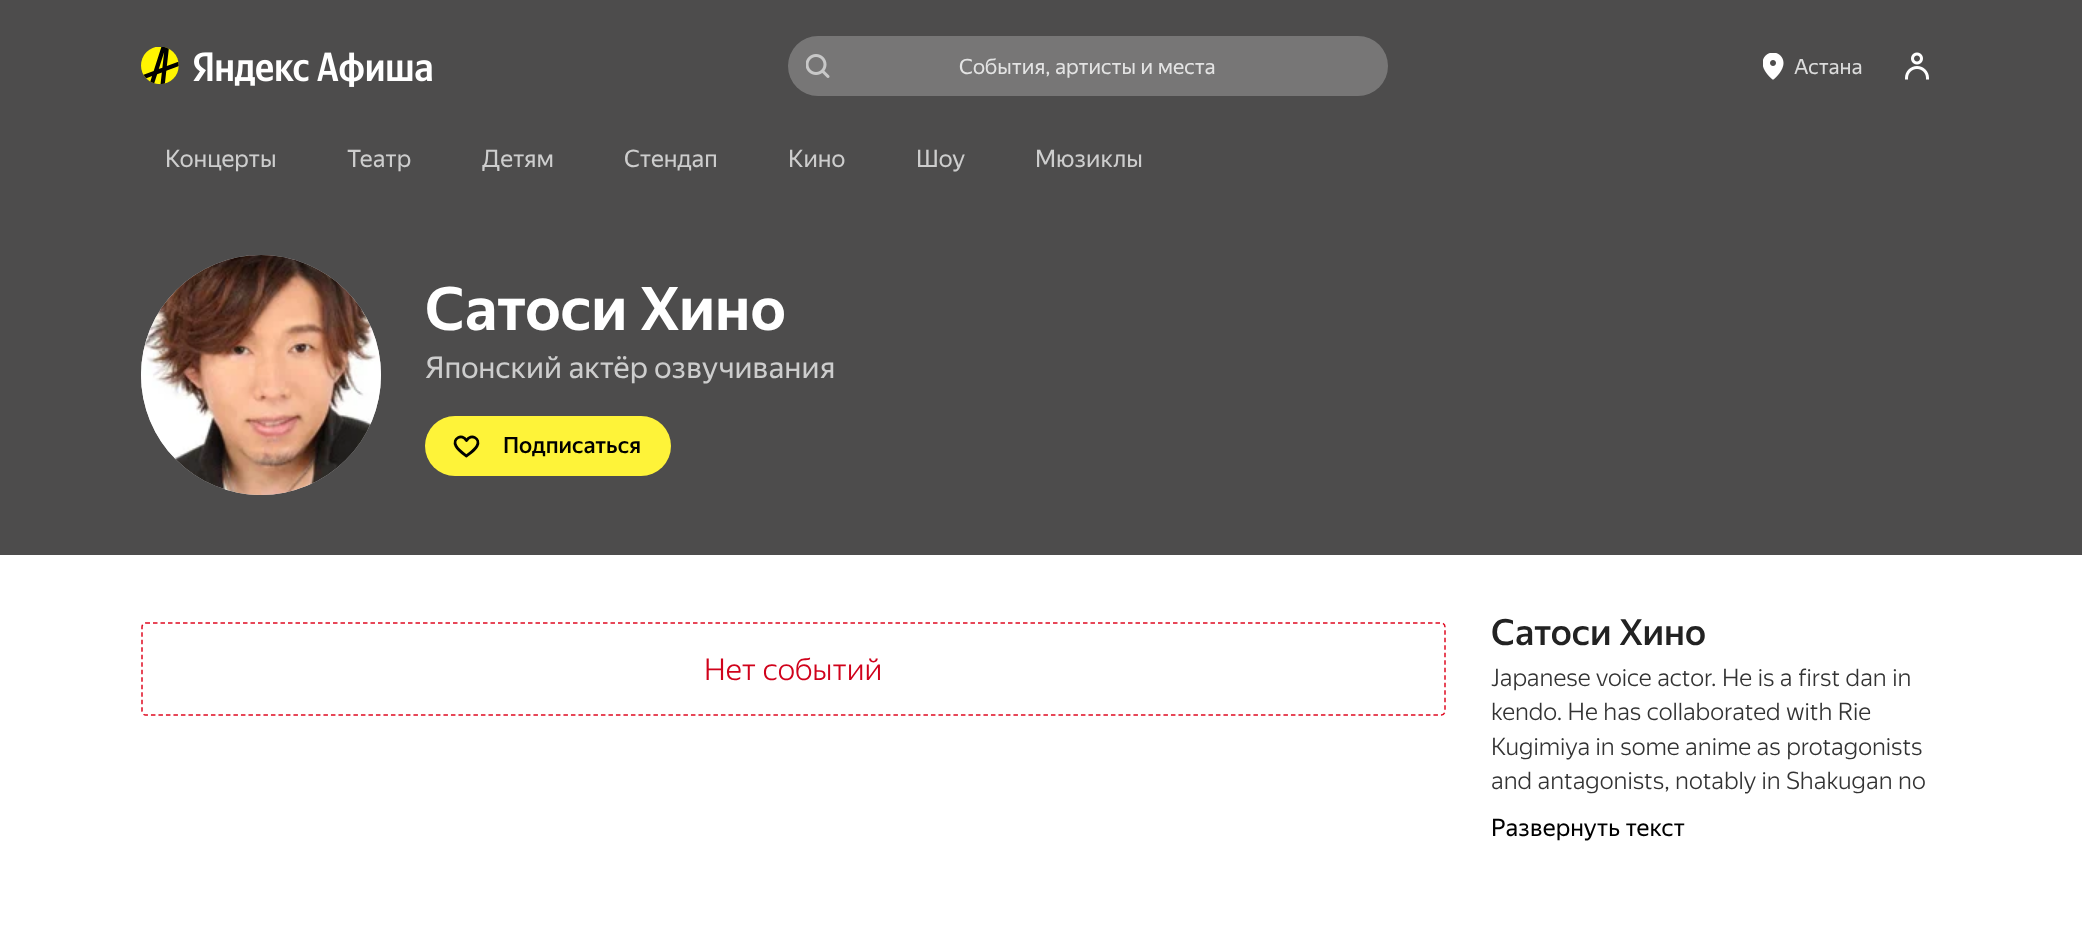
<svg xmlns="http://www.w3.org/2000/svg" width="2082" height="936">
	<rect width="100%" height="100%" fill="#FFFFFF" />
	<rect x="0" y="0" width="2082" height="555" fill="#4D4C4C" />
	<image x="141" y="47" width="38" height="38" href="assets/img1.png" />
	<image x="193" y="52" width="239" height="35" href="assets/img2.png" />
	<image x="806" y="54" width="24" height="24" href="assets/img3.png" />
	<text x="959" y="74" font-family="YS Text" font-size="21" fill="#DBDBDB">События, артисты и места</text>
	<rect x="788" y="36" width="600" height="60" rx="30" fill="#FFFFFF" fill-opacity="0.24" />
	<image x="1763" y="53" width="21" height="27" href="assets/img4.png" />
	<text x="1794" y="74" font-family="YS Text" font-size="21" fill="#DBDBDB">Астана</text>
	<image x="1905" y="52" width="24" height="28" href="assets/img5.png" />
	<g font-family="YS Text" font-size="24" fill="#CDCDCD">
		<text x="165" y="167">Концерты</text>
		<text x="347" y="167">Театр</text>
		<text x="482" y="167">Детям</text>
		<text x="624" y="167">Стендап</text>
		<text x="788" y="167">Кино</text>
		<text x="916" y="167">Шоу</text>
		<text x="1035" y="167">Мюзиклы</text>
	</g>
	<circle cx="261" cy="375" r="120" fill="#D8D8D8" />
	<image x="141" y="255" width="240" height="240" href="assets/img6.png" />
	<text x="425" y="330" font-family="YS Text" font-size="60" font-weight="700" fill="#FFFFFF">Сатоси Хино</text>
	<text x="425" y="378" font-family="YS Text" font-size="30" fill="#CDCDCD">Японский актёр озвучивания</text>
	<rect x="425" y="416" width="246" height="60" rx="30" fill="#FEF339" />
	<path d="M466.5 456C463 453.5 458 450 456 446C452 438.5 462 433 466.5 440.5C471 433 481 438.5 477 446C475 450 469.5 453.5 466.5 456Z" fill="none" stroke="#000000" stroke-width="2.8" stroke-linecap="square" stroke-linejoin="round" />
	<text x="503" y="453" font-family="YS Text" font-size="22.5" font-weight="500" fill="#000000">Подписаться</text>
	<path d="M145.5 623H1441.5C1443.5 623 1445 625 1445 627V711C1445 713 1443.5 715 1441.5 715H145.5C143.5 715 142 713 142 711V627C142 625 143.5 623 145.5 623Z" fill="none" stroke="#DF0B22" stroke-width="1.5" stroke-dasharray="4.5 3" />
	<text x="704" y="680" font-family="YS Text" font-size="30" font-weight="300" fill="#D0021B">Нет событий</text>
	<text x="1491" y="645" font-family="YS Text" font-size="36" font-weight="500" fill="#222222">Сатоси Хино</text>
	<g font-family="YS Text" font-size="24" font-weight="300" fill="#333333">
		<text x="1491" y="686">Japanese voice actor. He is a first dan in</text>
		<text x="1491" y="720">kendo. He has collaborated with Rie</text>
		<text x="1491" y="755">Kugimiya in some anime as protagonists</text>
		<text x="1491" y="789">and antagonists, notably in Shakugan no</text>
	</g>
	<text x="1491" y="836" font-family="YS Text" font-size="24" fill="#000000">Развернуть текст</text>
</svg>
